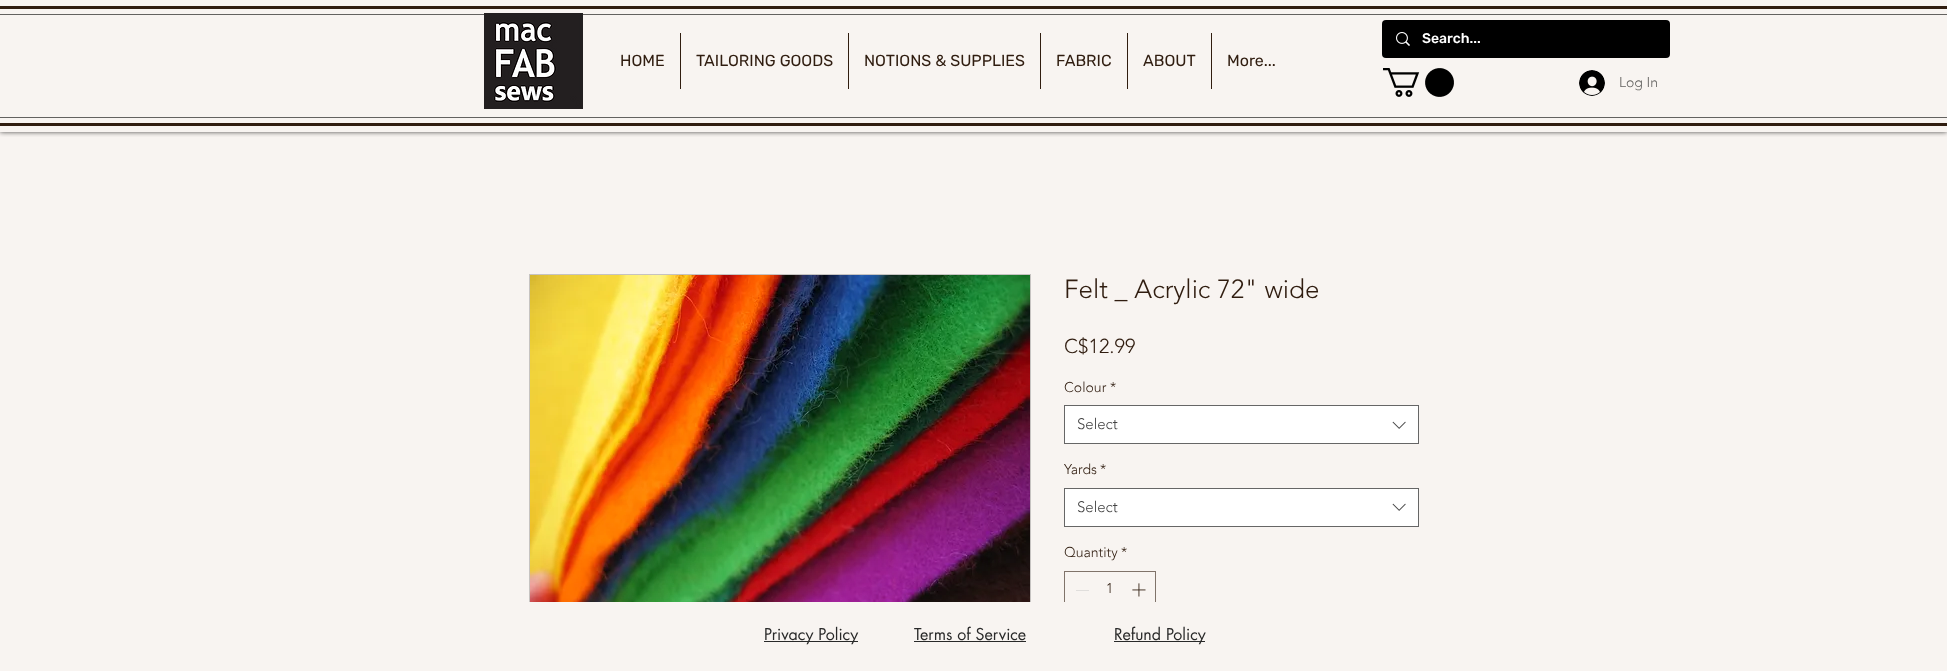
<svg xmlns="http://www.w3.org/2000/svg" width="1947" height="671">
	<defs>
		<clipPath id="clip1"><rect x="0" y="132" width="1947" height="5" /></clipPath>
	</defs>
	<rect width="100%" height="100%" fill="#F8F4F1" />
	<g clip-path="url(#clip1)">
		<rect x="0" y="0" width="1947" height="132" fill="#000000" fill-opacity="0.7" filter="blur(2.5px)" />
	</g>
	<rect x="0" y="6" width="1947" height="3" fill="#301D10" />
	<rect x="0" y="123" width="1947" height="3" fill="#301D10" />
	<rect x="0" y="14" width="1947" height="1" fill="#636260" />
	<rect x="0" y="117" width="1947" height="1" fill="#636260" />
	<image x="484" y="13" width="99" height="96" href="assets/img1.png" />
	<rect x="1382" y="20" width="288" height="38" rx="4" fill="#000000" />
	<image x="1396" y="32" width="14" height="14" href="assets/img2.png" />
	<text x="1422" y="43" font-family="Rubik" font-size="14" font-weight="500" fill="#FFFFFF">Search...</text>
	<text x="620" y="66" font-family="Rubik" font-size="16" fill="#301D10">HOME</text>
	<rect x="680" y="33" width="1" height="56" fill="#301D10" />
	<text x="696" y="66" font-family="Rubik" font-size="16" fill="#301D10">TAILORING GOODS</text>
	<rect x="848" y="33" width="1" height="56" fill="#301D10" />
	<text x="864" y="66" font-family="Rubik" font-size="16" fill="#301D10">NOTIONS &amp; SUPPLIES</text>
	<rect x="1040" y="33" width="1" height="56" fill="#301D10" />
	<text x="1056" y="66" font-family="Rubik" font-size="16" fill="#301D10">FABRIC</text>
	<rect x="1127" y="33" width="1" height="56" fill="#301D10" />
	<text x="1143" y="66" font-family="Rubik" font-size="16" fill="#301D10">ABOUT</text>
	<rect x="1211" y="33" width="1" height="56" fill="#301D10" />
	<text x="1227" y="66" font-family="Rubik" font-size="16" fill="#301D10">More...</text>
	<image x="1383" y="68" width="71" height="29" href="assets/img3.png" />
	<image x="1579" y="70" width="26" height="26" href="assets/img4.png" />
	<text x="1619" y="87" font-family="'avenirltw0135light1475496'" font-size="14" font-weight="300" fill="#636260">Log In</text>
	<rect x="529.5" y="274.5" width="501" height="376" fill="none" stroke="#C6C3C1" />
	<image x="530" y="275" width="500" height="327" href="assets/img5.png" />
	<text x="1064" y="298" font-family="'avenirltw0135light1475496'" font-size="26" font-weight="300" fill="#301D10">Felt _ Acrylic 72" wide</text>
	<text x="1064" y="353" font-family="'avenirltw0135light1475496'" font-size="20" font-weight="300" fill="#301D10">C$12.99</text>
	<g font-family="'avenirltw0135light1475496'" font-size="14" font-weight="300" fill="#301D10">
		<text x="1064" y="392">Colour</text>
		<text x="1110" y="392">*</text>
	</g>
	<rect x="1064.5" y="405.5" width="354" height="38" fill="#FFFFFF" stroke="#666666" />
	<text x="1077" y="429" font-family="'avenirltw0135light1475496'" font-size="15" font-weight="300" fill="#444444">Select</text>
	<image x="1392" y="421" width="14" height="8" href="assets/img6.png" />
	<g font-family="'avenirltw0135light1475496'" font-size="14" font-weight="300" fill="#301D10">
		<text x="1064" y="474">Yards</text>
		<text x="1100" y="474">*</text>
	</g>
	<rect x="1064.5" y="488.5" width="354" height="38" fill="#FFFFFF" stroke="#666666" />
	<text x="1077" y="512" font-family="'avenirltw0135light1475496'" font-size="15" font-weight="300" fill="#444444">Select</text>
	<image x="1392" y="503" width="14" height="8" href="assets/img6.png" />
	<g font-family="'avenirltw0135light1475496'" font-size="14" font-weight="300" fill="#301D10">
		<text x="1064" y="557">Quantity</text>
		<text x="1121" y="557">*</text>
	</g>
	<rect x="1064.5" y="571.5" width="91" height="36" fill="none" stroke="#80736A" />
	<rect x="1076" y="590" width="13" height="1" fill="#E0DEDC" />
	<text x="1106" y="593" font-family="'avenirltw0135light1475496'" font-size="14" font-weight="300" fill="#301D10">1</text>
	<image x="1132" y="583" width="14" height="14" href="assets/img7.png" />
	<rect x="529" y="602" width="627" height="49" fill="#F8F4F1" />
	<rect x="764" y="641" width="94" height="1" fill="#292929" />
	<g font-family="futura" font-size="16" fill="#292929">
		<text x="764" y="640">Privacy Policy</text>
		<text x="914" y="640">Terms of Service</text>
	</g>
	<rect x="914" y="641" width="112" height="1" fill="#292929" />
	<rect x="1114" y="641" width="91" height="1" fill="#292929" />
	<text x="1114" y="640" font-family="futura" font-size="16" fill="#292929">Refund Policy</text>
</svg>
